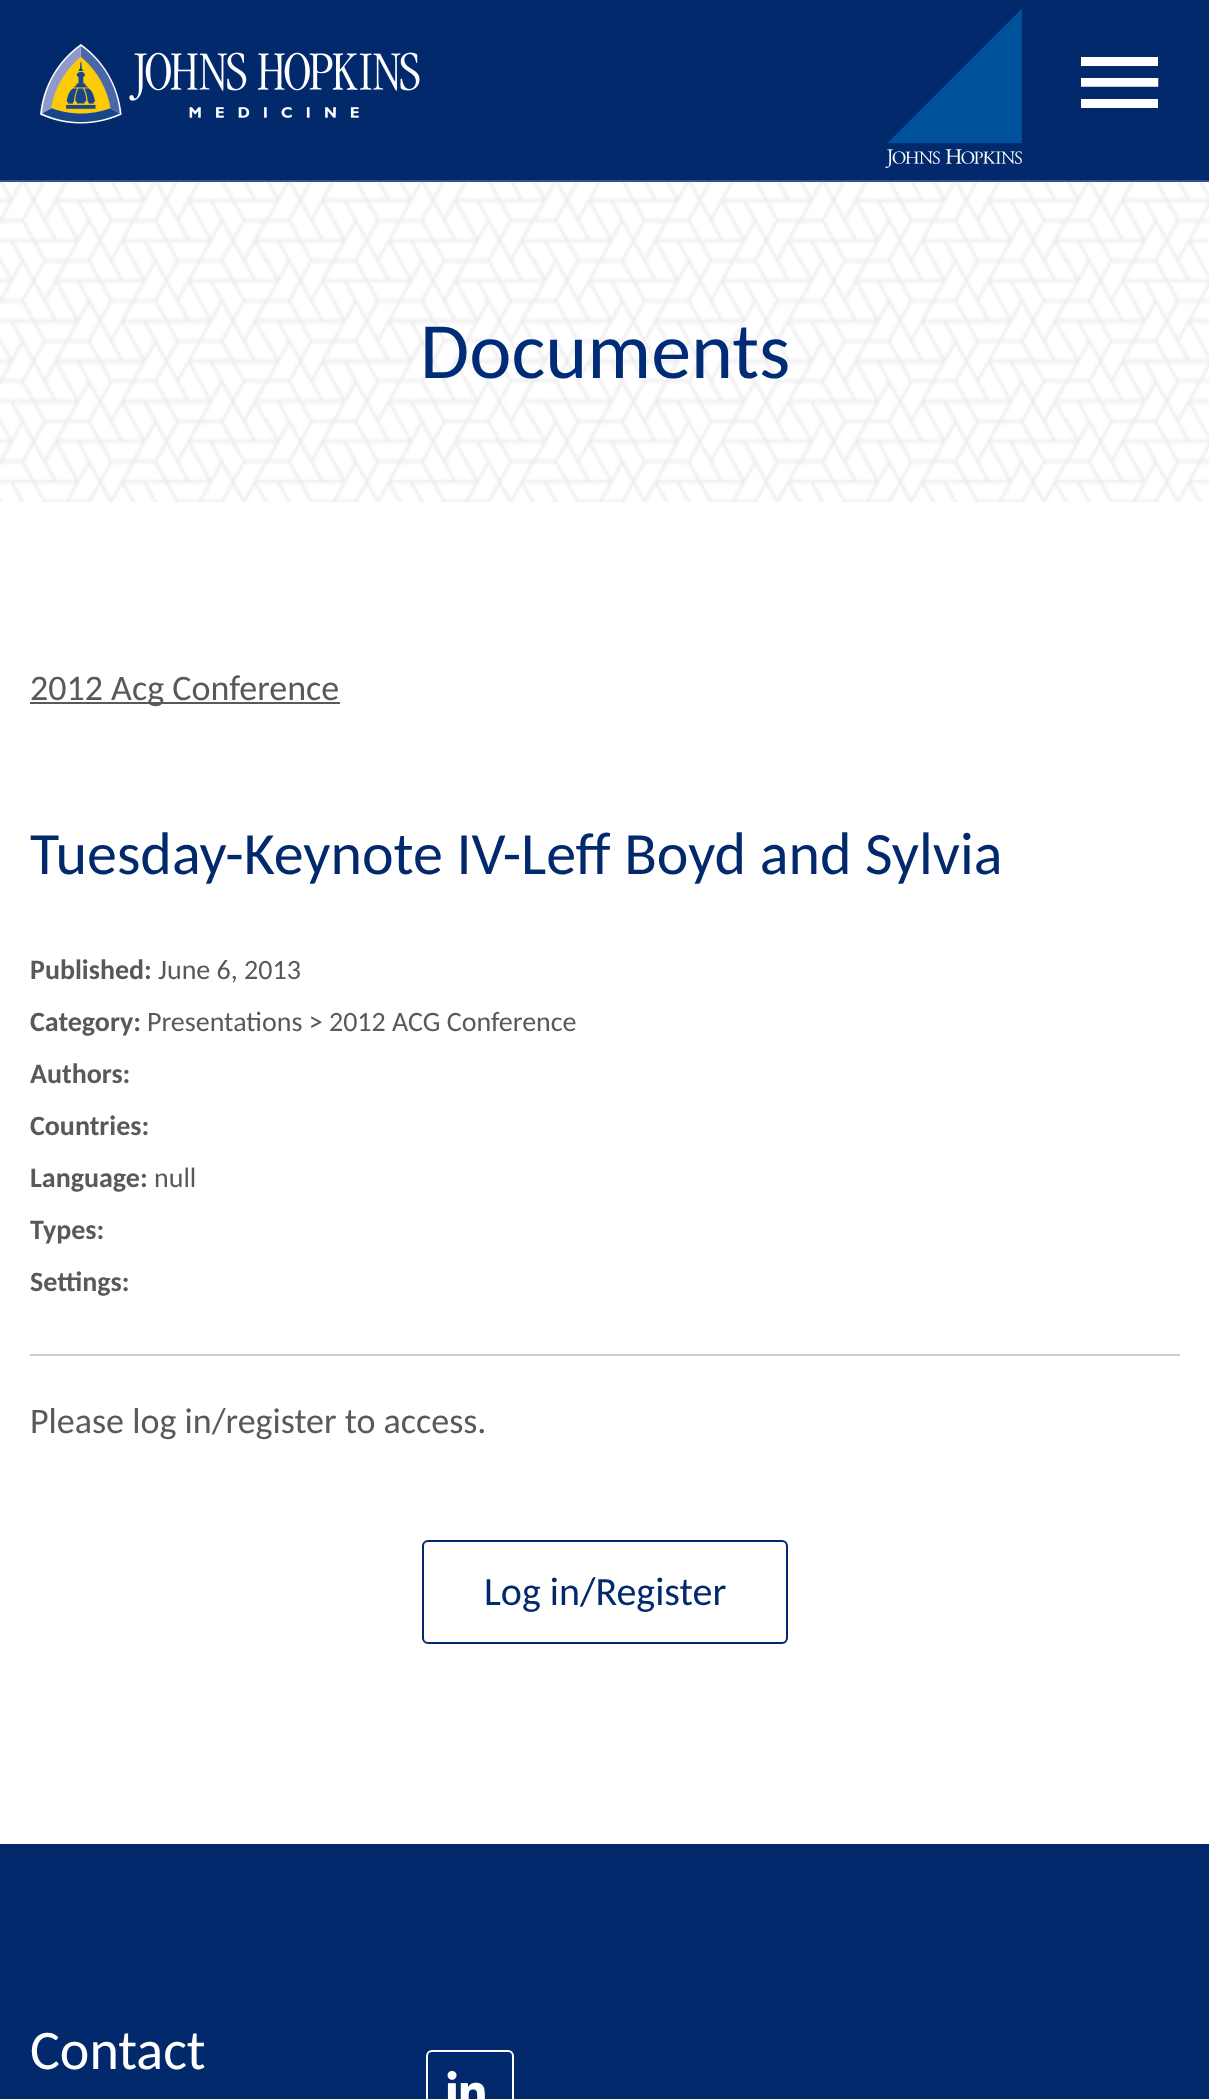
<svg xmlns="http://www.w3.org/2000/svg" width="1209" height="2099">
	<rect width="100%" height="100%" fill="#FFFFFF" />
	<rect x="0" y="0" width="1209" height="180" fill="#03296D" />
	<rect x="0" y="180" width="1209" height="2" fill="#35548A" />
	<image x="40" y="44" width="380" height="80" href="assets/img1.png" />
	<image x="885" y="8" width="137" height="160" href="assets/img2.png" />
	<image x="1081" y="57" width="78" height="51" href="assets/img3.png" />
	<image x="0" y="182" width="1209" height="320" href="assets/img4.png" />
	<text x="420" y="378" font-family="Carlito" font-size="80" fill="#002C77">Documents</text>
	<rect x="30" y="702" width="310" height="2" fill="#58595C" />
	<text x="30" y="700" font-family="Carlito" font-size="36" fill="#58595C">2012 Acg Conference</text>
	<text x="30" y="874" font-family="Carlito" font-size="60" fill="#03296D">Tuesday-Keynote IV-Leff Boyd and Sylvia</text>
	<text x="30" y="979" font-family="Carlito" font-size="28" font-weight="700" fill="#58595C">Published:</text>
	<text x="158" y="979" font-family="Carlito" font-size="28" fill="#58595C">June 6, 2013</text>
	<text x="30" y="1031" font-family="Carlito" font-size="28" font-weight="700" fill="#58595C">Category:</text>
	<text x="147" y="1031" font-family="Carlito" font-size="28" fill="#58595C">Presentations &gt; 2012 ACG Conference</text>
	<g font-family="Carlito" font-size="28" font-weight="700" fill="#58595C">
		<text x="30" y="1083">Authors:</text>
		<text x="30" y="1135">Countries:</text>
		<text x="30" y="1187">Language:</text>
	</g>
	<text x="154" y="1187" font-family="Carlito" font-size="28" fill="#58595C">null</text>
	<g font-family="Carlito" font-size="28" font-weight="700" fill="#58595C">
		<text x="30" y="1239">Types:</text>
		<text x="30" y="1291">Settings:</text>
	</g>
	<rect x="30" y="1354" width="1150" height="2" fill="#CCCCCC" />
	<text x="30" y="1433" font-family="Carlito" font-size="36" fill="#58595C">Please log in/register to access.</text>
	<rect x="423" y="1541" width="364" height="102" rx="5" fill="none" stroke="#03296D" stroke-width="2" />
	<text x="484" y="1605" font-family="Carlito" font-size="40" fill="#03296D">Log in/Register</text>
	<rect x="0" y="1844" width="1209" height="255" fill="#03296D" />
	<text x="30" y="2069" font-family="Carlito" font-size="56" fill="#FFFFFF">Contact</text>
	<rect x="427" y="2051" width="86" height="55" rx="5" fill="none" stroke="#FFFFFF" stroke-width="2" />
	<image x="447" y="2071" width="38" height="28" href="assets/img5.png" />
</svg>
